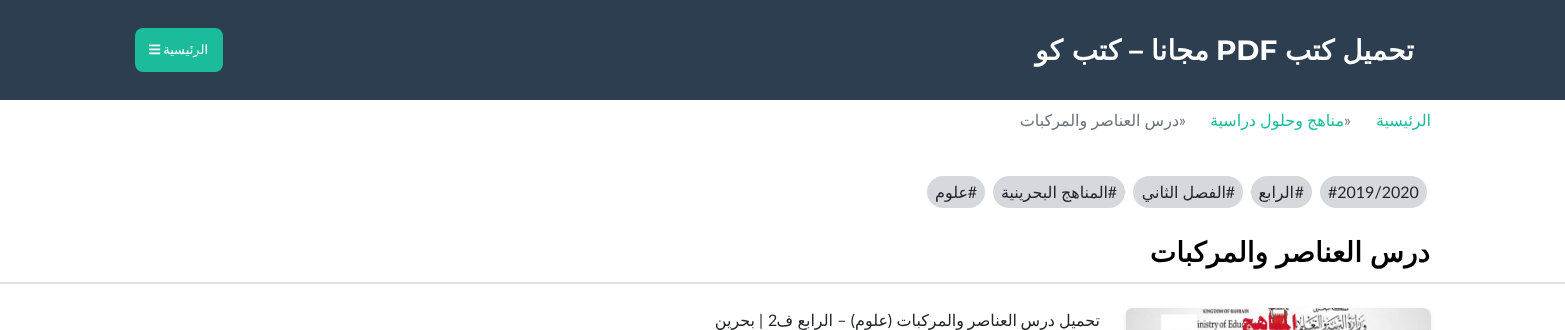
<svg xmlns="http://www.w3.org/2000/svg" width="1565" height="330">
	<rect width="100%" height="100%" fill="#FFFFFF" />
	<rect x="0" y="0" width="1565" height="100" fill="#2C3E50" />
	<text x="1414" y="60" word-spacing="-1" font-family="DejaVu Sans" font-size="28" font-weight="700" direction="rtl" fill="#FFFFFF">تحميل كتب</text>
	<text x="1216" y="60" font-family="Montserrat" font-size="28" font-weight="700" fill="#FFFFFF">PDF</text>
	<text x="1209" y="60" font-family="DejaVu Sans" font-size="28" font-weight="700" direction="rtl" fill="#FFFFFF">مجانا</text>
	<text x="1143" y="60" font-family="Montserrat" font-size="28" font-weight="700" direction="rtl" fill="#FFFFFF">–</text>
	<text x="1121" y="60" font-family="DejaVu Sans" font-size="28" font-weight="700" direction="rtl" fill="#FFFFFF">كتب كو</text>
	<rect x="135" y="28" width="88" height="44" rx="8" fill="#1ABC9C" />
	<text x="208" y="54" font-family="DejaVu Sans" font-size="13" direction="rtl" fill="#FFFFFF">الرئيسية</text>
	<image x="149" y="44" width="12" height="11" href="assets/img1.png" />
	<text x="1431" y="126" font-family="DejaVu Sans" font-size="16" direction="rtl" fill="#1ABC9C">الرئيسية</text>
	<text x="1344" y="126" font-family="Lato" font-size="16" fill="#6C757D">»</text>
	<text x="1344" y="126" word-spacing="-1" font-family="DejaVu Sans" font-size="16" direction="rtl" fill="#1ABC9C">مناهج وحلول دراسية</text>
	<text x="1179" y="126" font-family="Lato" font-size="16" fill="#6C757D">»</text>
	<text x="1179" y="126" word-spacing="-1" font-family="DejaVu Sans" font-size="16" direction="rtl" fill="#6C757D">درس العناصر والمركبات</text>
	<rect x="1320" y="176" width="107" height="32" rx="16" fill="#D5D8DC" />
	<text x="1328" y="198" font-family="Lato" font-size="16" fill="#212529">#2019/2020</text>
	<rect x="1251" y="176" width="61" height="32" rx="16" fill="#D5D8DC" />
	<text x="1304" y="198" font-family="Lato" font-size="16" direction="rtl" fill="#212529">#</text>
	<text x="1294" y="198" font-family="DejaVu Sans" font-size="16" direction="rtl" fill="#212529">الرابع</text>
	<rect x="1133" y="176" width="110" height="32" rx="16" fill="#D5D8DC" />
	<text x="1235" y="198" font-family="Lato" font-size="16" direction="rtl" fill="#212529">#</text>
	<text x="1226" y="198" word-spacing="-1" font-family="DejaVu Sans" font-size="16" direction="rtl" fill="#212529">الفصل الثاني</text>
	<rect x="993" y="176" width="132" height="32" rx="16" fill="#D5D8DC" />
	<text x="1117" y="198" font-family="Lato" font-size="16" direction="rtl" fill="#212529">#</text>
	<text x="1108" y="198" word-spacing="-1" font-family="DejaVu Sans" font-size="16" direction="rtl" fill="#212529">المناهج البحرينية</text>
	<rect x="927" y="176" width="58" height="32" rx="16" fill="#D5D8DC" />
	<text x="977" y="198" font-family="Lato" font-size="16" direction="rtl" fill="#212529">#</text>
	<text x="968" y="198" font-family="DejaVu Sans" font-size="16" direction="rtl" fill="#212529">علوم</text>
	<rect x="0" y="282" width="1565" height="2" fill="#DEE2E6" />
	<text x="1430" y="262" word-spacing="-1" font-family="DejaVu Sans" font-size="28" font-weight="700" direction="rtl" fill="#000000">درس العناصر والمركبات</text>
	<rect x="1125" y="310" width="306" height="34" rx="8" fill="#000000" fill-opacity="0.07" filter="blur(2px)" />
	<image x="1125" y="308" width="306" height="22" href="assets/img2.png" />
	<g font-family="DejaVu Sans" font-size="16" direction="rtl" fill="#212529">
		<text x="1100" y="326">تحميل</text>
		<text x="1055" y="326">درس</text>
		<text x="1017" y="326">العناصر</text>
		<text x="964" y="326">والمركبات</text>
	</g>
	<text x="892" y="326" font-family="Lato" font-size="16" direction="rtl" fill="#212529">(</text>
	<text x="888" y="326" font-family="DejaVu Sans" font-size="16" direction="rtl" fill="#212529">علوم</text>
	<text x="855" y="326" font-family="Lato" font-size="16" direction="rtl" fill="#212529">) –</text>
	<g font-family="DejaVu Sans" font-size="16" direction="rtl" fill="#212529">
		<text x="833" y="326">الرابع</text>
		<text x="793" y="326">ف</text>
	</g>
	<text x="768" y="326" font-family="Lato" font-size="16" fill="#212529">2</text>
	<text x="763" y="326" font-family="Lato" font-size="16" direction="rtl" fill="#212529">|</text>
	<text x="755" y="326" font-family="DejaVu Sans" font-size="16" direction="rtl" fill="#212529">بحرين</text>
</svg>
